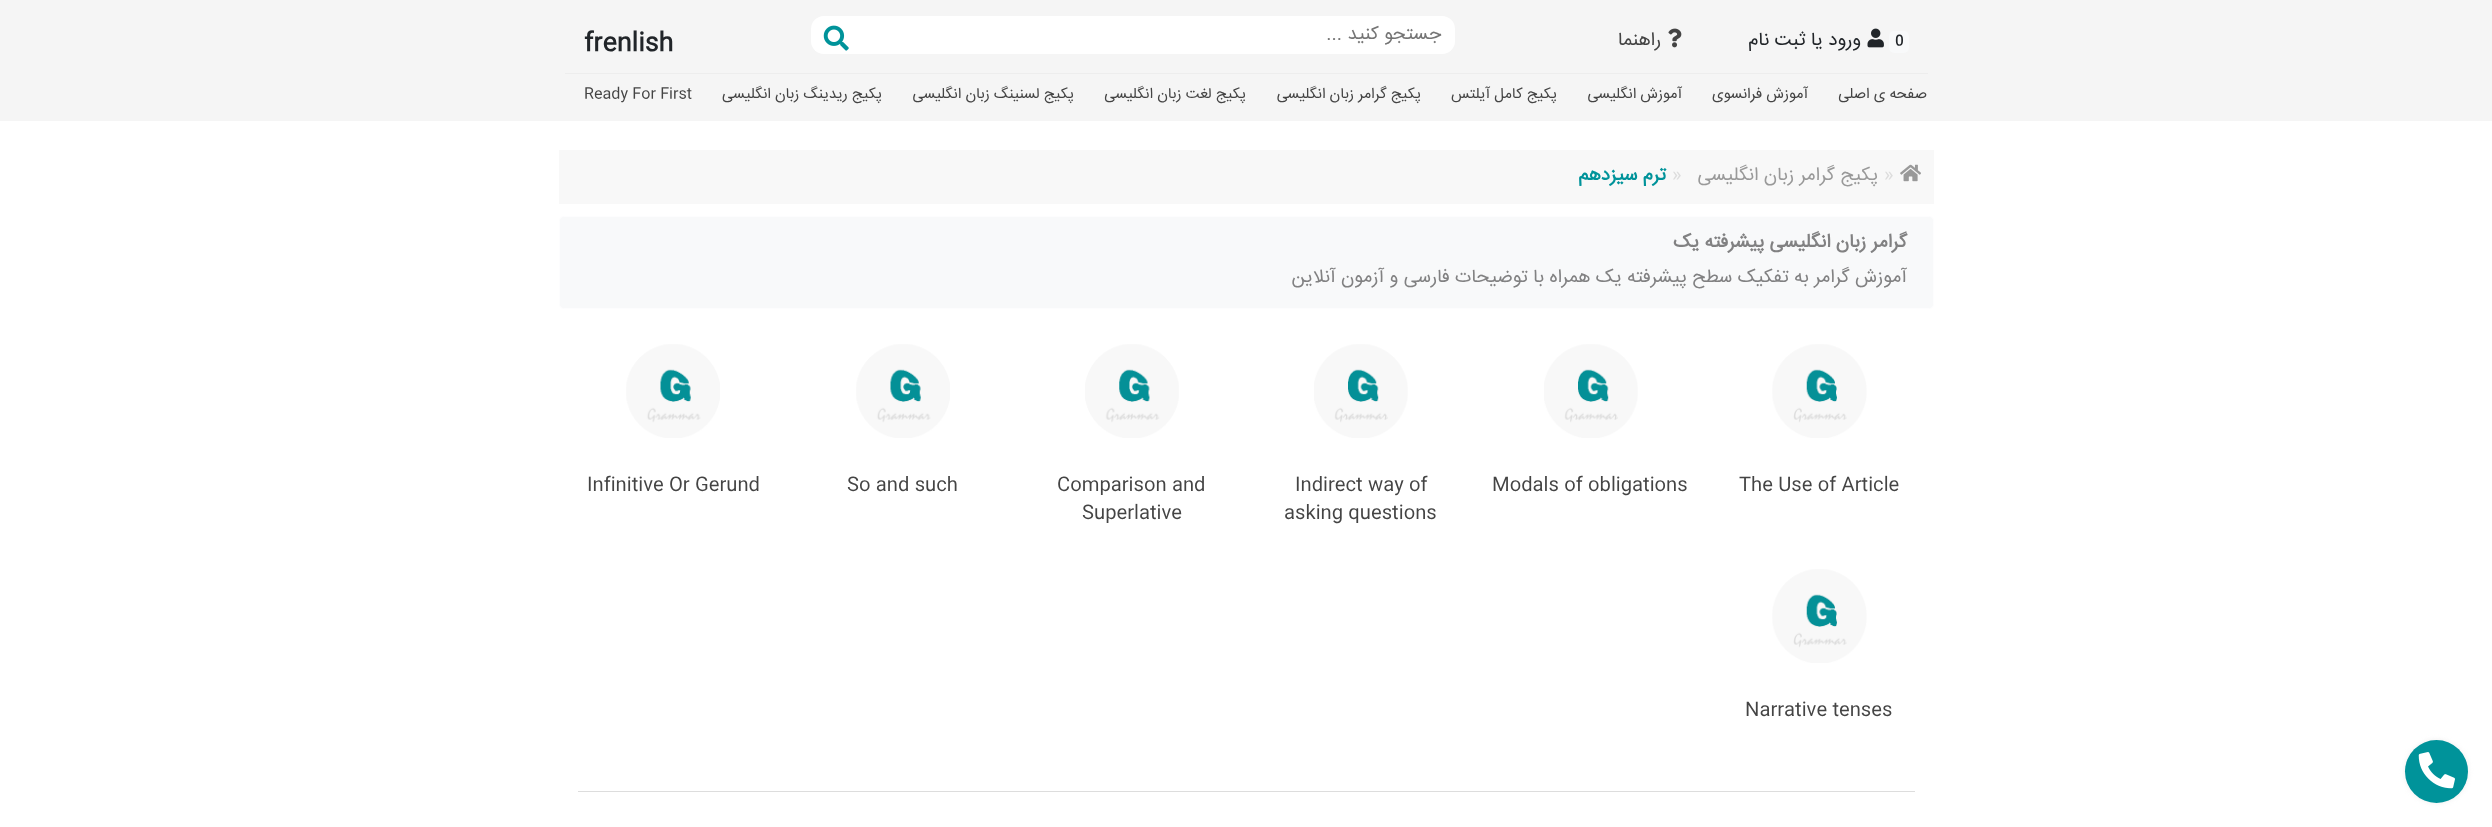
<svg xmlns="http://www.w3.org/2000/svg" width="2492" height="827">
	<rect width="100%" height="100%" fill="#FFFFFF" />
	<rect x="0" y="0" width="2492" height="121" fill="#F5F5F5" />
	<rect x="1889" y="31" width="20" height="22" rx="5" fill="#F8F9FA" />
	<text x="1895" y="45" font-family="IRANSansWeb" font-size="14" font-weight="700" fill="#212529">0</text>
	<image x="1867" y="28" width="17" height="20" href="assets/img1.png" />
	<text x="1861" y="45" font-family="IRANSansWeb" font-size="18.75" direction="rtl" fill="#212529">ورود یا ثبت نام</text>
	<image x="1668" y="28" width="14" height="20" href="assets/img2.png" />
	<text x="1661" y="45" font-family="IRANSansWeb" font-size="18.75" direction="rtl" fill="#444444">راهنما</text>
	<rect x="811" y="16" width="644" height="38" rx="13" fill="#FFFFFF" />
	<text x="1441" y="39" font-family="IRANSansWeb" font-size="18.75" direction="rtl" fill="#757575">جستجو کنید ...</text>
	<image x="823" y="25" width="26" height="26" href="assets/img3.png" />
	<text x="584" y="50" font-family="IRANSansWeb" font-size="25" font-weight="700" fill="#212529">frenlish</text>
	<rect x="565" y="73" width="1363" height="1" fill="#EDEDED" />
	<g font-family="IRANSansWeb" font-size="15" direction="rtl" fill="#444444">
		<text x="1927" y="98">صفحه ی اصلی</text>
		<text x="1808" y="98">آموزش فرانسوی</text>
		<text x="1682" y="98">آموزش انگلیسی</text>
		<text x="1557" y="98">پکیج کامل آیلتس</text>
		<text x="1421" y="98">پکیج گرامر زبان انگلیسی</text>
		<text x="1246" y="98">پکیج لغت زبان انگلیسی</text>
		<text x="1074" y="98">پکیج لسنینگ زبان انگلیسی</text>
		<text x="882" y="98">پکیج ریدینگ زبان انگلیسی</text>
	</g>
	<text x="584" y="98" font-family="IRANSansWeb" font-size="15" fill="#444444">Ready For First</text>
	<rect x="559" y="150" width="1375" height="54" fill="#F8F8F8" />
	<image x="1900" y="164" width="21" height="18" href="assets/img4.png" />
	<text x="1884" y="180" font-family="IRANSansWeb" font-size="18.75" fill="#DDDDDD">»</text>
	<text x="1878" y="180" font-family="IRANSansWeb" font-size="18.75" direction="rtl" fill="#999999">پکیج گرامر زبان انگلیسی</text>
	<text x="1672" y="180" font-family="IRANSansWeb" font-size="18.75" fill="#DDDDDD">»</text>
	<text x="1666" y="180" font-family="IRANSansWeb" font-size="18.75" font-weight="700" direction="rtl" fill="#00939A">ترم سیزدهم</text>
	<rect x="559.5" y="216.5" width="1374" height="92" rx="4.5" fill="#F8F9FA" stroke="#FDFDFE" />
	<text x="1907" y="247" font-family="IRANSansWeb" font-size="18.75" font-weight="700" direction="rtl" fill="#818182">گرامر زبان انگلیسی پیشرفته یک</text>
	<text x="1907" y="282" font-family="IRANSansWeb" font-size="18.75" direction="rtl" fill="#818182">آموزش گرامر به تفکیک سطح پیشرفته یک همراه با توضیحات فارسی و آزمون آنلاین</text>
	<image x="1772" y="344" width="95" height="94" href="assets/img5.png" />
	<text x="1739" y="490" font-family="IRANSansWeb" font-size="18.75" fill="#444444">The Use of Article</text>
	<image x="1544" y="344" width="94" height="94" href="assets/img6.png" />
	<text x="1492" y="490" font-family="IRANSansWeb" font-size="18.75" fill="#444444">Modals of obligations</text>
	<image x="1314" y="344" width="94" height="94" href="assets/img6.png" />
	<g font-family="IRANSansWeb" font-size="18.75" fill="#444444">
		<text x="1295" y="490">Indirect way of</text>
		<text x="1284" y="518">asking questions</text>
	</g>
	<image x="1085" y="344" width="94" height="94" href="assets/img7.png" />
	<g font-family="IRANSansWeb" font-size="18.75" fill="#444444">
		<text x="1057" y="490">Comparison and</text>
		<text x="1082" y="518">Superlative</text>
	</g>
	<image x="856" y="344" width="94" height="94" href="assets/img8.png" />
	<text x="847" y="490" font-family="IRANSansWeb" font-size="18.75" fill="#444444">So and such</text>
	<image x="626" y="344" width="94" height="94" href="assets/img8.png" />
	<text x="587" y="490" font-family="IRANSansWeb" font-size="18.75" fill="#444444">Infinitive Or Gerund</text>
	<image x="1772" y="569" width="95" height="94" href="assets/img5.png" />
	<text x="1745" y="715" font-family="IRANSansWeb" font-size="18.75" fill="#444444">Narrative tenses</text>
	<rect x="2405" y="740" width="63" height="63" rx="31.5" fill="#EDEDED" filter="blur(2.5px)" />
	<circle cx="2436.5" cy="771.5" r="31.5" fill="#00939A" />
	<image x="2418" y="752" width="37" height="37" href="assets/img9.png" />
	<rect x="578" y="791" width="1337" height="1" fill="#DDDDDD" />
</svg>
